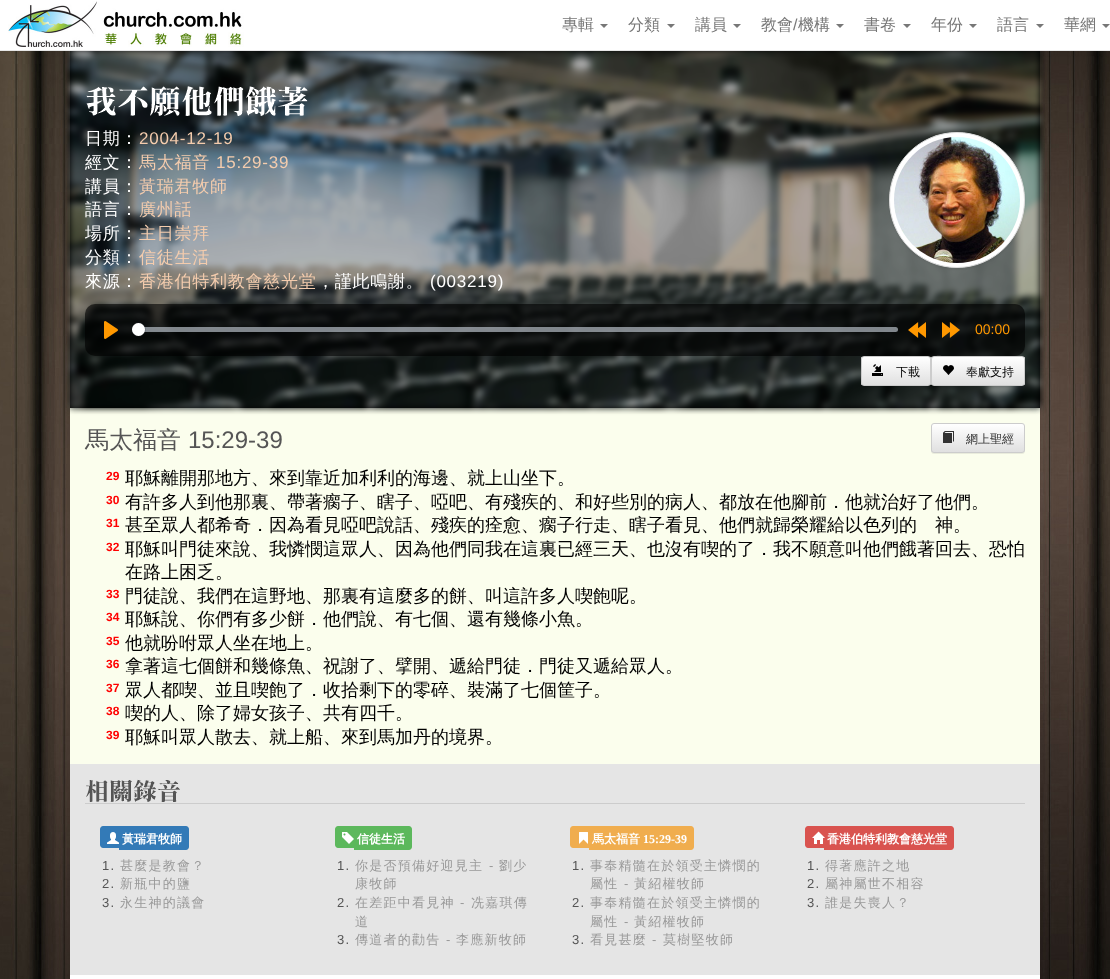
<svg xmlns="http://www.w3.org/2000/svg" width="1110" height="979">
	<defs>
		<clipPath id="clip1"><rect x="931" y="356" width="94" height="30" rx="3" /></clipPath>
		<linearGradient id="g1" gradientUnits="userSpaceOnUse" x1="978" y1="357" x2="978" y2="385"><stop offset="0" stop-color="#FFFFFF" /><stop offset="1" stop-color="#E0E0E0" /></linearGradient>
		<clipPath id="clip2"><rect x="861" y="356" width="70" height="30" rx="3" /></clipPath>
		<linearGradient id="g2" gradientUnits="userSpaceOnUse" x1="896" y1="357" x2="896" y2="385"><stop offset="0" stop-color="#FFFFFF" /><stop offset="1" stop-color="#E0E0E0" /></linearGradient>
		<clipPath id="clip3"><rect x="931" y="423" width="94" height="30" rx="3" /></clipPath>
		<linearGradient id="g3" gradientUnits="userSpaceOnUse" x1="978" y1="424" x2="978" y2="452"><stop offset="0" stop-color="#FFFFFF" /><stop offset="1" stop-color="#E0E0E0" /></linearGradient>
	</defs>
	<rect width="100%" height="100%" fill="#FFFFFF" />
	<image x="0" y="51" width="1110" height="928" href="assets/img1.png" />
	<rect x="70" y="51" width="970" height="357" fill="#000000" />
	<rect x="70" y="408" width="970" height="356" fill="#FBFEED" />
	<rect x="70" y="50" width="970" height="358" fill="#000000" fill-opacity="0.7" filter="blur(3px)" />
	<image x="65" y="51" width="981" height="363" href="assets/img3.png" />
	<rect x="0" y="1" width="1110" height="51" fill="#000000" fill-opacity="0.07" filter="blur(2.5px)" />
	<rect x="0" y="50" width="1110" height="1" fill="#E7E7E7" />
	<rect x="0" y="0" width="1110" height="50" fill="#FFFFFF" />
	<image x="8" y="1" width="236" height="46" href="assets/img2.png" />
	<text x="562" y="30" font-family="WenQuanYi Zen Hei" font-size="16" font-weight="500" fill="#777777">專輯</text>
	<path d="M600 24H608L604 28Z" fill="#777777" />
	<text x="628" y="30" font-family="WenQuanYi Zen Hei" font-size="16" font-weight="500" fill="#777777">分類</text>
	<path d="M667 24H675L671 28Z" fill="#777777" />
	<text x="695" y="30" font-family="WenQuanYi Zen Hei" font-size="16" font-weight="500" fill="#777777">講員</text>
	<path d="M733 24H741L737 28Z" fill="#777777" />
	<text x="761" y="30" font-family="WenQuanYi Zen Hei" font-size="16" font-weight="500" fill="#777777">教會</text>
	<text x="793" y="30" font-family="Liberation Sans" font-size="16" fill="#777777">/</text>
	<text x="798" y="30" font-family="WenQuanYi Zen Hei" font-size="16" font-weight="500" fill="#777777">機構</text>
	<path d="M836 24H844L840 28Z" fill="#777777" />
	<text x="864" y="30" font-family="WenQuanYi Zen Hei" font-size="16" font-weight="500" fill="#777777">書卷</text>
	<path d="M903 24H911L907 28Z" fill="#777777" />
	<text x="931" y="30" font-family="WenQuanYi Zen Hei" font-size="16" font-weight="500" fill="#777777">年份</text>
	<path d="M969 24H977L973 28Z" fill="#777777" />
	<text x="997" y="30" font-family="WenQuanYi Zen Hei" font-size="16" font-weight="500" fill="#777777">語言</text>
	<path d="M1036 24H1044L1040 28Z" fill="#777777" />
	<text x="1064" y="30" font-family="WenQuanYi Zen Hei" font-size="16" font-weight="500" fill="#777777">華網</text>
	<path d="M1102 24H1110L1106 28Z" fill="#777777" />
	<image x="86" y="87" width="30" height="29" href="assets/img4.png" />
	<image x="118" y="86" width="30" height="30" href="assets/img5.png" />
	<image x="150" y="86" width="30" height="30" href="assets/img6.png" />
	<image x="182" y="86" width="30" height="30" href="assets/img7.png" />
	<image x="214" y="86" width="30" height="30" href="assets/img8.png" />
	<image x="246" y="86" width="30" height="30" href="assets/img9.png" />
	<image x="278" y="86" width="30" height="30" href="assets/img10.png" />
	<text x="85" y="144" font-family="WenQuanYi Zen Hei" font-size="17" font-weight="500" letter-spacing="0.75" fill="#FFFFFF">日期：</text>
	<text x="139" y="144" font-family="Liberation Sans" font-size="17" letter-spacing="0.75" fill="#F4CCAD">2004-12-19</text>
	<text x="85" y="168" font-family="WenQuanYi Zen Hei" font-size="17" font-weight="500" letter-spacing="0.75" fill="#FFFFFF">經文：</text>
	<text x="139" y="168" font-family="WenQuanYi Zen Hei" font-size="17" font-weight="500" letter-spacing="0.75" fill="#F4CCAD">馬太福音</text>
	<text x="216" y="168" font-family="Liberation Sans" font-size="17" letter-spacing="0.75" fill="#F4CCAD">15:29-39</text>
	<text x="85" y="192" font-family="WenQuanYi Zen Hei" font-size="17" font-weight="500" letter-spacing="0.75" fill="#FFFFFF">講員：</text>
	<text x="139" y="192" font-family="WenQuanYi Zen Hei" font-size="17" font-weight="500" letter-spacing="0.75" fill="#F4CCAD">黃瑞君牧師</text>
	<text x="85" y="215" font-family="WenQuanYi Zen Hei" font-size="17" font-weight="500" letter-spacing="0.75" fill="#FFFFFF">語言：</text>
	<text x="139" y="215" font-family="WenQuanYi Zen Hei" font-size="17" font-weight="500" letter-spacing="0.75" fill="#F4CCAD">廣州話</text>
	<text x="85" y="239" font-family="WenQuanYi Zen Hei" font-size="17" font-weight="500" letter-spacing="0.75" fill="#FFFFFF">場所：</text>
	<text x="139" y="239" font-family="WenQuanYi Zen Hei" font-size="17" font-weight="500" letter-spacing="0.75" fill="#F4CCAD">主日崇拜</text>
	<text x="85" y="263" font-family="WenQuanYi Zen Hei" font-size="17" font-weight="500" letter-spacing="0.75" fill="#FFFFFF">分類：</text>
	<text x="139" y="263" font-family="WenQuanYi Zen Hei" font-size="17" font-weight="500" letter-spacing="0.75" fill="#F4CCAD">信徒生活</text>
	<text x="85" y="287" font-family="WenQuanYi Zen Hei" font-size="17" font-weight="500" letter-spacing="0.75" fill="#FFFFFF">來源：</text>
	<text x="139" y="287" font-family="WenQuanYi Zen Hei" font-size="17" font-weight="500" letter-spacing="0.75" fill="#F4CCAD">香港伯特利教會慈光堂</text>
	<text x="317" y="287" font-family="WenQuanYi Zen Hei" font-size="17" font-weight="500" letter-spacing="0.75" fill="#FFFFFF">，謹此鳴謝。</text>
	<text x="430" y="287" font-family="Liberation Sans" font-size="17" letter-spacing="0.75" fill="#FFFFFF">(003219)</text>
	<rect x="889" y="133" width="136" height="136" rx="68" fill="#000000" fill-opacity="0.07" filter="blur(1px)" />
	<circle cx="957" cy="200" r="67.5" fill="#FFFFFF" stroke="#DDDDDD" />
	<image x="894" y="137" width="126" height="126" href="assets/img11.png" />
	<g clip-path="url(#clip1)">
		<rect x="931" y="357" width="94" height="28" fill="url(#g1)" />
	</g>
	<path d="M934 358H1022C1023 358 1024 359 1024 360C1024 359 1024 357 1022 357H949C946 357 932 353 932 360C932 359 933 358 934 358Z" fill="#FEFEFE" />
	<rect x="85" y="304" width="940" height="52" rx="10" fill="#000000" fill-opacity="0.6" />
	<image x="104" y="321" width="14" height="18" href="assets/img12.png" />
	<rect x="132" y="327" width="766" height="5" rx="2.5" fill="#C1C9D1" fill-opacity="0.66" />
	<circle cx="138.5" cy="329.5" r="7" fill="none" stroke="#23292F" stroke-opacity="0.2" />
	<rect x="132" y="324" width="13" height="13" rx="6.5" fill="#000000" fill-opacity="0.15" filter="blur(0.5px)" />
	<circle cx="138.5" cy="329.5" r="6.5" fill="#FFFFFF" />
	<image x="908" y="322" width="18" height="16" href="assets/img13.png" />
	<image x="942" y="322" width="18" height="16" href="assets/img14.png" />
	<text x="975" y="334" font-family="Liberation Sans" font-size="14" fill="#FF9800">00:00</text>
	<g clip-path="url(#clip2)">
		<rect x="861" y="357" width="70" height="28" fill="url(#g2)" />
	</g>
	<rect x="861.5" y="356.5" width="69" height="29" rx="2.5" fill="none" stroke="#CCCCCC" />
	<image x="872" y="364" width="11" height="12" href="assets/img15.png" />
	<text x="896" y="376" font-family="WenQuanYi Zen Hei" font-size="12" font-weight="500" fill="#000000">下載</text>
	<rect x="931.5" y="356.5" width="93" height="29" rx="2.5" fill="none" stroke="#CCCCCC" />
	<image x="943" y="365" width="11" height="10" href="assets/img16.png" />
	<text x="966" y="376" font-family="WenQuanYi Zen Hei" font-size="12" font-weight="500" fill="#000000">奉獻支持</text>
	<text x="85" y="448" font-family="WenQuanYi Zen Hei" font-size="24" font-weight="500" fill="#555555">馬太福音</text>
	<text x="188" y="448" font-family="Liberation Sans" font-size="24" fill="#555555">15:29-39</text>
	<text x="106" y="480" font-family="Liberation Sans" font-size="12" font-weight="700" fill="#FF0000">29</text>
	<text x="125" y="484" font-family="WenQuanYi Zen Hei" font-size="18" font-weight="500" fill="#000000">耶穌離開那地方、來到靠近加利利的海邊、就上山坐下。</text>
	<text x="106" y="504" font-family="Liberation Sans" font-size="12" font-weight="700" fill="#FF0000">30</text>
	<text x="125" y="508" font-family="WenQuanYi Zen Hei" font-size="18" font-weight="500" fill="#000000">有許多人到他那裏、帶著瘸子、瞎子、啞吧、有殘疾的、和好些別的病人、都放在他腳前．他就治好了他們。</text>
	<text x="106" y="527" font-family="Liberation Sans" font-size="12" font-weight="700" fill="#FF0000">31</text>
	<text x="125" y="531" font-family="WenQuanYi Zen Hei" font-size="18" font-weight="500" fill="#000000">甚至眾人都希奇．因為看見啞吧說話、殘疾的痊愈、瘸子行走、瞎子看見、他們就歸榮耀給以色列的　神。</text>
	<text x="106" y="551" font-family="Liberation Sans" font-size="12" font-weight="700" fill="#FF0000">32</text>
	<g font-family="WenQuanYi Zen Hei" font-size="18" font-weight="500" fill="#000000">
		<text x="125" y="555">耶穌叫門徒來說、我憐憫這眾人、因為他們同我在這裏已經三天、也沒有喫的了．我不願意叫他們餓著回去、恐怕</text>
		<text x="125" y="578">在路上困乏。</text>
	</g>
	<text x="106" y="598" font-family="Liberation Sans" font-size="12" font-weight="700" fill="#FF0000">33</text>
	<text x="125" y="602" font-family="WenQuanYi Zen Hei" font-size="18" font-weight="500" fill="#000000">門徒說、我們在這野地、那裏有這麼多的餅、叫這許多人喫飽呢。</text>
	<text x="106" y="621" font-family="Liberation Sans" font-size="12" font-weight="700" fill="#FF0000">34</text>
	<text x="125" y="625" font-family="WenQuanYi Zen Hei" font-size="18" font-weight="500" fill="#000000">耶穌說、你們有多少餅．他們說、有七個、還有幾條小魚。</text>
	<text x="106" y="645" font-family="Liberation Sans" font-size="12" font-weight="700" fill="#FF0000">35</text>
	<text x="125" y="649" font-family="WenQuanYi Zen Hei" font-size="18" font-weight="500" fill="#000000">他就吩咐眾人坐在地上。</text>
	<text x="106" y="668" font-family="Liberation Sans" font-size="12" font-weight="700" fill="#FF0000">36</text>
	<text x="125" y="672" font-family="WenQuanYi Zen Hei" font-size="18" font-weight="500" fill="#000000">拿著這七個餅和幾條魚、祝謝了、擘開、遞給門徒．門徒又遞給眾人。</text>
	<text x="106" y="692" font-family="Liberation Sans" font-size="12" font-weight="700" fill="#FF0000">37</text>
	<text x="125" y="696" font-family="WenQuanYi Zen Hei" font-size="18" font-weight="500" fill="#000000">眾人都喫、並且喫飽了．收拾剩下的零碎、裝滿了七個筐子。</text>
	<text x="106" y="715" font-family="Liberation Sans" font-size="12" font-weight="700" fill="#FF0000">38</text>
	<text x="125" y="719" font-family="WenQuanYi Zen Hei" font-size="18" font-weight="500" fill="#000000">喫的人、除了婦女孩子、共有四千。</text>
	<text x="106" y="739" font-family="Liberation Sans" font-size="12" font-weight="700" fill="#FF0000">39</text>
	<text x="125" y="743" font-family="WenQuanYi Zen Hei" font-size="18" font-weight="500" fill="#000000">耶穌叫眾人散去、就上船、來到馬加丹的境界。</text>
	<rect x="931" y="424" width="94" height="30" rx="3" fill="#000000" fill-opacity="0.07" filter="blur(0.5px)" />
	<g clip-path="url(#clip3)">
		<rect x="931" y="424" width="94" height="28" fill="url(#g3)" />
	</g>
	<path d="M934 425H1022C1023 425 1024 426 1024 427C1024 426 1024 424 1022 424H949C946 424 932 420 932 427C932 426 933 425 934 425Z" fill="#FEFEFE" />
	<rect x="931.5" y="423.5" width="93" height="29" rx="2.5" fill="none" stroke="#CCCCCC" />
	<image x="943" y="431" width="11" height="12" href="assets/img17.png" />
	<text x="966" y="443" font-family="WenQuanYi Zen Hei" font-size="12" font-weight="500" fill="#333333">網上聖經</text>
	<rect x="70" y="764" width="970" height="211" fill="#E5E5E5" />
	<rect x="85" y="803" width="940" height="1" fill="#CCCCCC" />
	<image x="86" y="780" width="22" height="22" href="assets/img18.png" />
	<image x="110" y="780" width="22" height="22" href="assets/img19.png" />
	<image x="133" y="779" width="23" height="23" href="assets/img20.png" />
	<image x="158" y="780" width="22" height="22" href="assets/img21.png" />
	<path d="M103 826H119V848H103C101.5 848 100 846.5 100 845V829C100 827.5 101.5 826 103 826Z" fill="#337AB7" />
	<path d="M119 826H186C187.5 826 189 827.5 189 829V847C189 848.5 187.5 850 186 850H119Z" fill="#337AB7" />
	<image x="107" y="832" width="12" height="12" href="assets/img22.png" />
	<text x="122" y="843" font-family="WenQuanYi Zen Hei" font-size="12" font-weight="700" fill="#FFFFFF">黃瑞君牧師</text>
	<text x="102" y="870" font-family="Liberation Sans" font-size="13" letter-spacing="1.25" fill="#555555">1.</text>
	<text x="120" y="870" font-family="WenQuanYi Zen Hei" font-size="13" font-weight="500" letter-spacing="1.25" fill="#999999">甚麼是教會？</text>
	<text x="102" y="888" font-family="Liberation Sans" font-size="13" letter-spacing="1.25" fill="#555555">2.</text>
	<text x="120" y="888" font-family="WenQuanYi Zen Hei" font-size="13" font-weight="500" letter-spacing="1.25" fill="#999999">新瓶中的鹽</text>
	<text x="102" y="907" font-family="Liberation Sans" font-size="13" letter-spacing="1.25" fill="#555555">3.</text>
	<text x="120" y="907" font-family="WenQuanYi Zen Hei" font-size="13" font-weight="500" letter-spacing="1.25" fill="#999999">永生神的議會</text>
	<path d="M338 826H354V848H338C336.5 848 335 846.5 335 845V829C335 827.5 336.5 826 338 826Z" fill="#5CB85C" />
	<path d="M354 826H409C410.5 826 412 827.5 412 829V847C412 848.5 410.5 850 409 850H354Z" fill="#5CB85C" />
	<image x="342" y="832" width="12" height="12" href="assets/img23.png" />
	<text x="357" y="843" font-family="WenQuanYi Zen Hei" font-size="12" font-weight="700" fill="#FFFFFF">信徒生活</text>
	<text x="337" y="870" font-family="Liberation Sans" font-size="13" letter-spacing="1.25" fill="#555555">1.</text>
	<text x="355" y="870" font-family="WenQuanYi Zen Hei" font-size="13" font-weight="500" letter-spacing="1.25" fill="#999999">你是否預備好迎見主</text>
	<text x="489" y="870" font-family="Liberation Sans" font-size="13" letter-spacing="1.25" fill="#999999">-</text>
	<g font-family="WenQuanYi Zen Hei" font-size="13" font-weight="500" letter-spacing="1.25" fill="#999999">
		<text x="499" y="870">劉少</text>
		<text x="355" y="888">康牧師</text>
	</g>
	<text x="337" y="907" font-family="Liberation Sans" font-size="13" letter-spacing="1.25" fill="#555555">2.</text>
	<text x="355" y="907" font-family="WenQuanYi Zen Hei" font-size="13" font-weight="500" letter-spacing="1.25" fill="#999999">在差距中看見神</text>
	<text x="460" y="907" font-family="Liberation Sans" font-size="13" letter-spacing="1.25" fill="#999999">-</text>
	<g font-family="WenQuanYi Zen Hei" font-size="13" font-weight="500" letter-spacing="1.25" fill="#999999">
		<text x="471" y="907">冼嘉琪傳</text>
		<text x="355" y="926">道</text>
	</g>
	<text x="337" y="944" font-family="Liberation Sans" font-size="13" letter-spacing="1.25" fill="#555555">3.</text>
	<text x="355" y="944" font-family="WenQuanYi Zen Hei" font-size="13" font-weight="500" letter-spacing="1.25" fill="#999999">傳道者的勸告</text>
	<text x="446" y="944" font-family="Liberation Sans" font-size="13" letter-spacing="1.25" fill="#999999">-</text>
	<text x="456" y="944" font-family="WenQuanYi Zen Hei" font-size="13" font-weight="500" letter-spacing="1.25" fill="#999999">李應新牧師</text>
	<path d="M573 826H589V848H573C571.5 848 570 846.5 570 845V829C570 827.5 571.5 826 573 826Z" fill="#F0AD4E" />
	<path d="M589 826H691C692.5 826 694 827.5 694 829V847C694 848.5 692.5 850 691 850H589Z" fill="#F0AD4E" />
	<image x="579" y="832" width="9" height="12" href="assets/img24.png" />
	<text x="592" y="843" font-family="WenQuanYi Zen Hei" font-size="12" font-weight="700" fill="#FFFFFF">馬太福音</text>
	<text x="643" y="843" font-family="Liberation Serif" font-size="12" font-weight="700" fill="#FFFFFF">15:29-39</text>
	<text x="572" y="870" font-family="Liberation Sans" font-size="13" letter-spacing="1.25" fill="#555555">1.</text>
	<g font-family="WenQuanYi Zen Hei" font-size="13" font-weight="500" letter-spacing="1.25" fill="#999999">
		<text x="590" y="870">事奉精髓在於領受主憐憫的</text>
		<text x="590" y="888">屬性</text>
	</g>
	<text x="624" y="888" font-family="Liberation Sans" font-size="13" letter-spacing="1.25" fill="#999999">-</text>
	<text x="634" y="888" font-family="WenQuanYi Zen Hei" font-size="13" font-weight="500" letter-spacing="1.25" fill="#999999">黃紹權牧師</text>
	<text x="572" y="907" font-family="Liberation Sans" font-size="13" letter-spacing="1.25" fill="#555555">2.</text>
	<g font-family="WenQuanYi Zen Hei" font-size="13" font-weight="500" letter-spacing="1.25" fill="#999999">
		<text x="590" y="907">事奉精髓在於領受主憐憫的</text>
		<text x="590" y="926">屬性</text>
	</g>
	<text x="624" y="926" font-family="Liberation Sans" font-size="13" letter-spacing="1.25" fill="#999999">-</text>
	<text x="634" y="926" font-family="WenQuanYi Zen Hei" font-size="13" font-weight="500" letter-spacing="1.25" fill="#999999">黃紹權牧師</text>
	<text x="572" y="944" font-family="Liberation Sans" font-size="13" letter-spacing="1.25" fill="#555555">3.</text>
	<text x="590" y="944" font-family="WenQuanYi Zen Hei" font-size="13" font-weight="500" letter-spacing="1.25" fill="#999999">看見甚麼</text>
	<text x="652" y="944" font-family="Liberation Sans" font-size="13" letter-spacing="1.25" fill="#999999">-</text>
	<text x="663" y="944" font-family="WenQuanYi Zen Hei" font-size="13" font-weight="500" letter-spacing="1.25" fill="#999999">莫樹堅牧師</text>
	<path d="M808 826H824V848H808C806.5 848 805 846.5 805 845V829C805 827.5 806.5 826 808 826Z" fill="#D9534F" />
	<path d="M824 826H951C952.5 826 954 827.5 954 829V847C954 848.5 952.5 850 951 850H824Z" fill="#D9534F" />
	<image x="812" y="831" width="13" height="13" href="assets/img25.png" />
	<text x="827" y="843" font-family="WenQuanYi Zen Hei" font-size="12" font-weight="700" fill="#FFFFFF">香港伯特利教會慈光堂</text>
	<text x="807" y="870" font-family="Liberation Sans" font-size="13" letter-spacing="1.25" fill="#555555">1.</text>
	<text x="825" y="870" font-family="WenQuanYi Zen Hei" font-size="13" font-weight="500" letter-spacing="1.25" fill="#999999">得著應許之地</text>
	<text x="807" y="888" font-family="Liberation Sans" font-size="13" letter-spacing="1.25" fill="#555555">2.</text>
	<text x="825" y="888" font-family="WenQuanYi Zen Hei" font-size="13" font-weight="500" letter-spacing="1.25" fill="#999999">屬神屬世不相容</text>
	<text x="807" y="907" font-family="Liberation Sans" font-size="13" letter-spacing="1.25" fill="#555555">3.</text>
	<text x="825" y="907" font-family="WenQuanYi Zen Hei" font-size="13" font-weight="500" letter-spacing="1.25" fill="#999999">誰是失喪人？</text>
	<rect x="70" y="975" width="970" height="4" fill="#FFFFFF" />
</svg>
